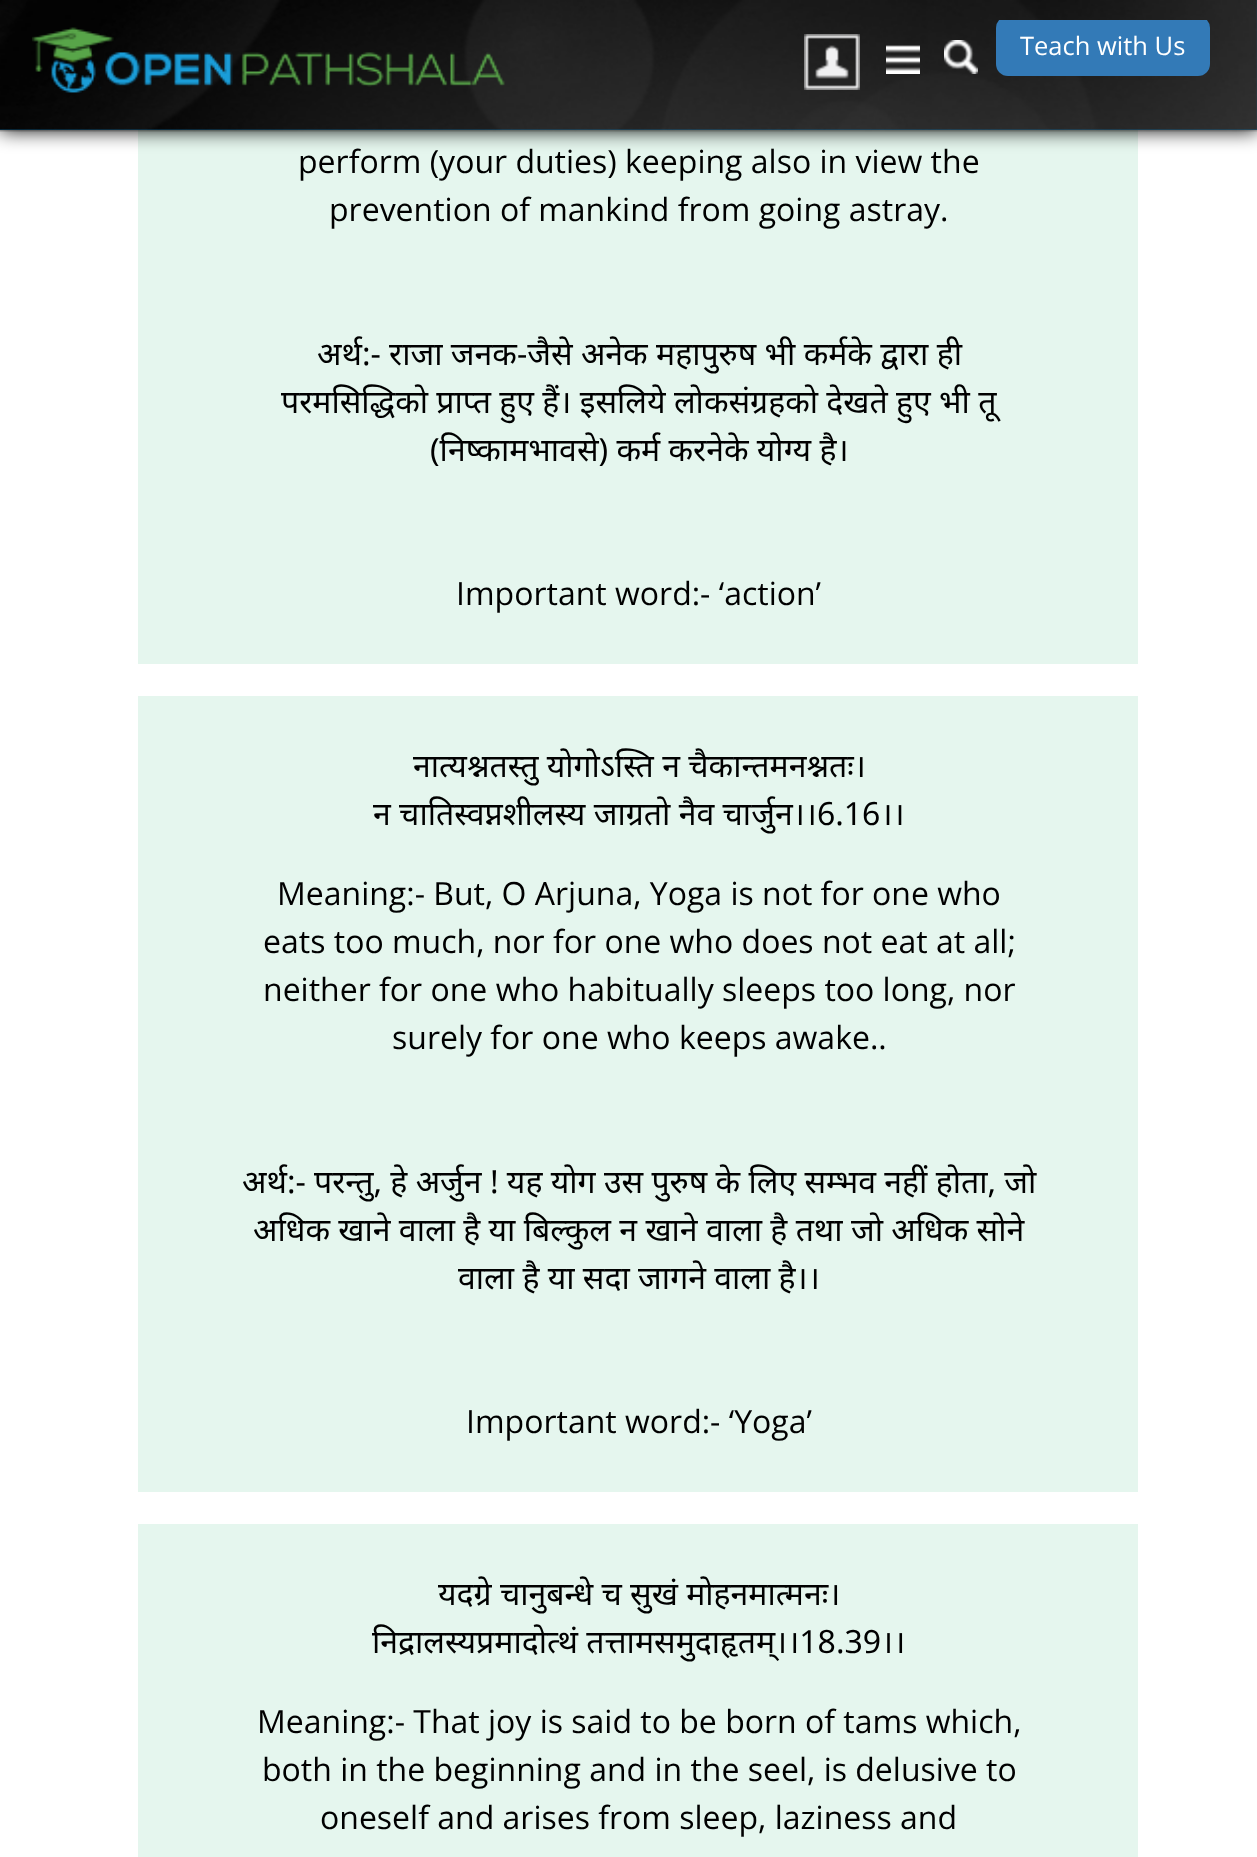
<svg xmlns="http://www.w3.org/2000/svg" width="1257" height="1857">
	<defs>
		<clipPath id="clip1"><rect x="0" y="20" width="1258" height="90" /></clipPath>
	</defs>
	<rect width="100%" height="100%" fill="#FFFFFF" />
	<rect x="138" y="130" width="1000" height="534" fill="#E5F6EE" />
	<rect x="0" y="0" width="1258" height="130" fill="#000000" filter="blur(10px)" />
	<rect x="0" y="0" width="1257" height="130" fill="#0A71AB" />
	<image x="0" y="0" width="1257" height="132" href="assets/img1.png" />
	<image x="32" y="27" width="473" height="66" href="assets/img2.png" />
	<image x="804" y="34" width="56" height="56" href="assets/img3.png" />
	<image x="886" y="45" width="34" height="29" href="assets/img4.png" />
	<image x="944" y="40" width="34" height="34" href="assets/img5.png" />
	<g clip-path="url(#clip1)">
		<rect x="996" y="16" width="214" height="60" rx="12" fill="#337AB7" />
	</g>
	<text x="1020" y="55" font-family="Open Sans" font-size="25.5" fill="#FFFFFF">Teach with Us</text>
	<g font-family="Open Sans" font-size="32" fill="#000000">
		<text x="298" y="173">perform (your duties) keeping also in view the</text>
		<text x="329" y="221">prevention of mankind from going astray.</text>
	</g>
	<g font-family="Noto Sans" font-size="32" fill="#000000">
		<text x="317" y="365">अर्थ:- राजा जनक-जैसे अनेक महापुरुष भी कर्मके द्वारा ही</text>
		<text x="281" y="413">परमसिद्धिको प्राप्त हुए हैं। इसलिये लोकसंग्रहको देखते हुए भी तू</text>
		<text x="430" y="461">(निष्कामभावसे) कर्म करनेके योग्य है।</text>
	</g>
	<text x="456" y="605" font-family="Open Sans" font-size="32" fill="#000000">Important word:- ‘action’</text>
	<rect x="138" y="696" width="1000" height="796" fill="#E5F6EE" />
	<g font-family="Noto Sans" font-size="32" fill="#000000">
		<text x="413" y="777">नात्यश्नतस्तु योगोऽस्ति न चैकान्तमनश्नतः।</text>
		<text x="373" y="825">न चातिस्वप्नशीलस्य जाग्रतो नैव चार्जुन।।6.16।।</text>
	</g>
	<g font-family="Open Sans" font-size="32" fill="#000000">
		<text x="277" y="905">Meaning:- But, O Arjuna, Yoga is not for one who</text>
		<text x="263" y="953">eats too much, nor for one who does not eat at all;</text>
		<text x="263" y="1001">neither for one who habitually sleeps too long, nor</text>
		<text x="392" y="1049">surely for one who keeps awake..</text>
	</g>
	<g font-family="Noto Sans" font-size="32" fill="#000000">
		<text x="242" y="1193">अर्थ:- परन्तु, हे अर्जुन ! यह योग उस पुरुष के लिए सम्भव नहीं होता, जो</text>
		<text x="253" y="1241">अधिक खाने वाला है या बिल्कुल न खाने वाला है तथा जो अधिक सोने</text>
		<text x="458" y="1289">वाला है या सदा जागने वाला है।।</text>
	</g>
	<text x="466" y="1433" font-family="Open Sans" font-size="32" fill="#000000">Important word:- ‘Yoga’</text>
	<rect x="138" y="1524" width="1000" height="333" fill="#E5F6EE" />
	<g font-family="Noto Sans" font-size="32" fill="#000000">
		<text x="438" y="1605">यदग्रे चानुबन्धे च सुखं मोहनमात्मनः।</text>
		<text x="372" y="1653">निद्रालस्यप्रमादोत्थं तत्तामसमुदाहृतम्।।18.39।।</text>
	</g>
	<g font-family="Open Sans" font-size="32" fill="#000000">
		<text x="257" y="1733">Meaning:- That joy is said to be born of tams which,</text>
		<text x="262" y="1781">both in the beginning and in the seel, is delusive to</text>
		<text x="320" y="1829">oneself and arises from sleep, laziness and</text>
	</g>
</svg>
